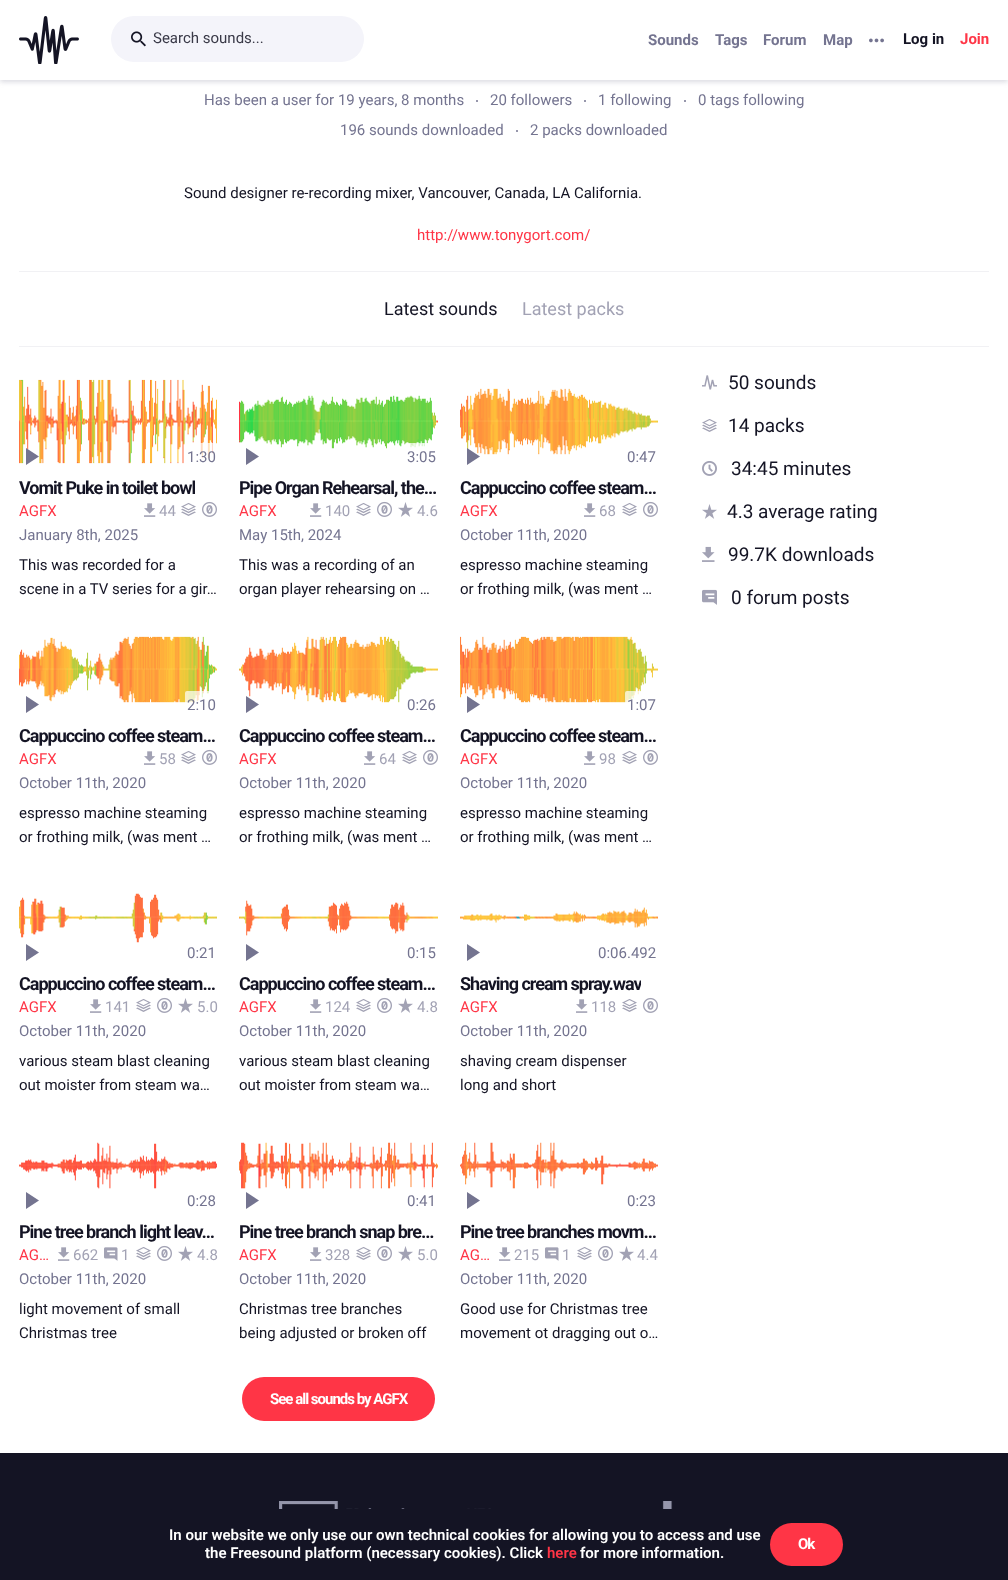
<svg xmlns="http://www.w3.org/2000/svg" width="1008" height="1580">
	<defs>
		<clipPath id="clip1"><rect x="19" y="477" width="176" height="22" /></clipPath>
		<clipPath id="clip2"><rect x="460" y="973" width="181" height="22" /></clipPath>
	</defs>
	<rect width="100%" height="100%" fill="#FFFFFF" />
	<rect x="0" y="2" width="1008" height="80" fill="#A2A2B4" fill-opacity="0.4" filter="blur(2.5px)" />
	<rect x="0" y="0" width="1008" height="80" fill="#FFFFFF" />
	<image x="19" y="16" width="60" height="48" href="assets/img1.png" />
	<rect x="111" y="16" width="253" height="46" rx="23" fill="#F4F4FA" />
	<image x="131" y="31" width="15" height="16" href="assets/img2.png" />
	<text x="153" y="43" font-family="Roboto" font-size="15" fill="#393947">Search sounds...</text>
	<g font-family="Roboto" font-size="15" font-weight="700" fill="#747490">
		<text x="648" y="45">Sounds</text>
		<text x="715" y="45">Tags</text>
		<text x="763" y="45">Forum</text>
		<text x="823" y="45">Map</text>
	</g>
	<image x="869" y="38" width="15" height="5" href="assets/img3.png" />
	<text x="903" y="44" font-family="Roboto" font-size="15" font-weight="700" fill="#141424">Log in</text>
	<text x="960" y="44" font-family="Roboto" font-size="15" font-weight="700" fill="#FF3546">Join</text>
	<text x="204" y="105" font-family="Roboto" font-size="15" fill="#747490">Has been a user for 19 years, 8 months</text>
	<circle cx="477" cy="101" r="1" fill="#747490" />
	<text x="490" y="105" font-family="Roboto" font-size="15" fill="#747490">20 followers</text>
	<circle cx="585" cy="101" r="1" fill="#747490" />
	<text x="598" y="105" font-family="Roboto" font-size="15" fill="#747490">1 following</text>
	<circle cx="685" cy="101" r="1" fill="#747490" />
	<g font-family="Roboto" font-size="15" fill="#747490">
		<text x="698" y="105">0 tags following</text>
		<text x="340" y="135">196 sounds downloaded</text>
	</g>
	<circle cx="517" cy="131" r="1" fill="#747490" />
	<text x="530" y="135" font-family="Roboto" font-size="15" fill="#747490">2 packs downloaded</text>
	<text x="184" y="198" font-family="Roboto" font-size="15" fill="#141424">Sound designer re-recording mixer, Vancouver, Canada, LA California.</text>
	<text x="417" y="240" font-family="Roboto" font-size="15" fill="#FF3546">http://www.tonygort.com/</text>
	<rect x="19" y="271" width="970" height="1" fill="#F1F1F4" />
	<text x="384" y="315" font-family="Roboto" font-size="18" fill="#141424">Latest sounds</text>
	<text x="522" y="315" font-family="Roboto" font-size="18" fill="#A2A2B4">Latest packs</text>
	<rect x="19" y="346" width="970" height="1" fill="#F1F1F4" />
	<image x="19" y="379" width="198" height="85" href="assets/img4.png" />
	<path d="M26 448V465L39 456.5Z" fill="#747490" />
	<rect x="185" y="443" width="32" height="28" rx="2" fill="#FFFFFF" fill-opacity="0.7" />
	<text x="187" y="462" font-family="Roboto" font-size="15" fill="#747490">1:30</text>
	<g clip-path="url(#clip1)">
		<text x="19" y="494" font-family="Roboto" font-size="18" font-weight="700" letter-spacing="-1" fill="#141424">Vomit Puke in toilet bowl</text>
	</g>
	<text x="19" y="516" font-family="Roboto" font-size="15" fill="#FF3546">AGFX</text>
	<image x="144" y="503" width="12" height="14" href="assets/img5.png" />
	<text x="159" y="516" font-family="Roboto" font-size="15" fill="#A2A2B4">44</text>
	<image x="181" y="503" width="15" height="13" href="assets/img6.png" />
	<image x="202" y="501" width="15" height="16" href="assets/img7.png" />
	<text x="19" y="540" font-family="Roboto" font-size="15" fill="#747490">January 8th, 2025</text>
	<g font-family="Roboto" font-size="15" fill="#141424">
		<text x="19" y="570">This was recorded for a</text>
		<text x="19" y="594">scene in a TV series for a gir…</text>
	</g>
	<image x="239" y="395" width="199" height="54" href="assets/img8.png" />
	<path d="M246 448V465L259 456.5Z" fill="#747490" />
	<rect x="405" y="443" width="33" height="28" rx="2" fill="#FFFFFF" fill-opacity="0.7" />
	<text x="407" y="462" font-family="Roboto" font-size="15" fill="#747490">3:05</text>
	<text x="239" y="494" font-family="Roboto" font-size="18" font-weight="700" letter-spacing="-1" fill="#141424">Pipe Organ Rehearsal, the…</text>
	<text x="239" y="516" font-family="Roboto" font-size="15" fill="#FF3546">AGFX</text>
	<image x="310" y="503" width="12" height="14" href="assets/img5.png" />
	<text x="325" y="516" font-family="Roboto" font-size="15" fill="#A2A2B4">140</text>
	<image x="356" y="503" width="15" height="13" href="assets/img6.png" />
	<image x="377" y="501" width="15" height="16" href="assets/img7.png" />
	<image x="398" y="502" width="15" height="15" href="assets/img9.png" />
	<text x="417" y="516" font-family="Roboto" font-size="15" fill="#A2A2B4">4.6</text>
	<text x="239" y="540" font-family="Roboto" font-size="15" fill="#747490">May 15th, 2024</text>
	<g font-family="Roboto" font-size="15" fill="#141424">
		<text x="239" y="570">This was a recording of an</text>
		<text x="239" y="594">organ player rehearsing on …</text>
	</g>
	<image x="460" y="388" width="198" height="67" href="assets/img10.png" />
	<path d="M467 448V465L480 456.5Z" fill="#747490" />
	<text x="627" y="462" font-family="Roboto" font-size="15" fill="#747490">0:47</text>
	<text x="460" y="494" font-family="Roboto" font-size="18" font-weight="700" letter-spacing="-1" fill="#141424">Cappuccino coffee steam…</text>
	<text x="460" y="516" font-family="Roboto" font-size="15" fill="#FF3546">AGFX</text>
	<image x="584" y="503" width="12" height="14" href="assets/img5.png" />
	<text x="599" y="516" font-family="Roboto" font-size="15" fill="#A2A2B4">68</text>
	<image x="622" y="503" width="15" height="13" href="assets/img6.png" />
	<image x="643" y="501" width="15" height="16" href="assets/img7.png" />
	<text x="460" y="540" font-family="Roboto" font-size="15" fill="#747490">October 11th, 2020</text>
	<g font-family="Roboto" font-size="15" fill="#141424">
		<text x="460" y="570">espresso machine steaming</text>
		<text x="460" y="594">or frothing milk, (was ment …</text>
	</g>
	<image x="19" y="636" width="198" height="67" href="assets/img11.png" />
	<path d="M26 696V713L39 704.5Z" fill="#747490" />
	<rect x="185" y="691" width="32" height="28" rx="2" fill="#FFFFFF" fill-opacity="0.7" />
	<text x="187" y="710" font-family="Roboto" font-size="15" fill="#747490">2:10</text>
	<text x="19" y="742" font-family="Roboto" font-size="18" font-weight="700" letter-spacing="-1" fill="#141424">Cappuccino coffee steam…</text>
	<text x="19" y="764" font-family="Roboto" font-size="15" fill="#FF3546">AGFX</text>
	<image x="144" y="751" width="12" height="14" href="assets/img5.png" />
	<text x="159" y="764" font-family="Roboto" font-size="15" fill="#A2A2B4">58</text>
	<image x="181" y="751" width="15" height="13" href="assets/img6.png" />
	<image x="202" y="749" width="15" height="16" href="assets/img7.png" />
	<text x="19" y="788" font-family="Roboto" font-size="15" fill="#747490">October 11th, 2020</text>
	<g font-family="Roboto" font-size="15" fill="#141424">
		<text x="19" y="818">espresso machine steaming</text>
		<text x="19" y="842">or frothing milk, (was ment …</text>
	</g>
	<image x="239" y="636" width="199" height="67" href="assets/img12.png" />
	<path d="M246 696V713L259 704.5Z" fill="#747490" />
	<text x="407" y="710" font-family="Roboto" font-size="15" fill="#747490">0:26</text>
	<text x="239" y="742" font-family="Roboto" font-size="18" font-weight="700" letter-spacing="-1" fill="#141424">Cappuccino coffee steam…</text>
	<text x="239" y="764" font-family="Roboto" font-size="15" fill="#FF3546">AGFX</text>
	<image x="364" y="751" width="12" height="14" href="assets/img5.png" />
	<text x="379" y="764" font-family="Roboto" font-size="15" fill="#A2A2B4">64</text>
	<image x="402" y="751" width="15" height="13" href="assets/img6.png" />
	<image x="423" y="749" width="15" height="16" href="assets/img7.png" />
	<text x="239" y="788" font-family="Roboto" font-size="15" fill="#747490">October 11th, 2020</text>
	<g font-family="Roboto" font-size="15" fill="#141424">
		<text x="239" y="818">espresso machine steaming</text>
		<text x="239" y="842">or frothing milk, (was ment …</text>
	</g>
	<image x="460" y="636" width="198" height="67" href="assets/img13.png" />
	<path d="M467 696V713L480 704.5Z" fill="#747490" />
	<rect x="625" y="691" width="33" height="28" rx="2" fill="#FFFFFF" fill-opacity="0.7" />
	<text x="627" y="710" font-family="Roboto" font-size="15" fill="#747490">1:07</text>
	<text x="460" y="742" font-family="Roboto" font-size="18" font-weight="700" letter-spacing="-1" fill="#141424">Cappuccino coffee steam…</text>
	<text x="460" y="764" font-family="Roboto" font-size="15" fill="#FF3546">AGFX</text>
	<image x="584" y="751" width="12" height="14" href="assets/img5.png" />
	<text x="599" y="764" font-family="Roboto" font-size="15" fill="#A2A2B4">98</text>
	<image x="622" y="751" width="15" height="13" href="assets/img6.png" />
	<image x="643" y="749" width="15" height="16" href="assets/img7.png" />
	<text x="460" y="788" font-family="Roboto" font-size="15" fill="#747490">October 11th, 2020</text>
	<g font-family="Roboto" font-size="15" fill="#141424">
		<text x="460" y="818">espresso machine steaming</text>
		<text x="460" y="842">or frothing milk, (was ment …</text>
	</g>
	<image x="19" y="893" width="198" height="50" href="assets/img14.png" />
	<path d="M26 944V961L39 952.5Z" fill="#747490" />
	<text x="187" y="958" font-family="Roboto" font-size="15" fill="#747490">0:21</text>
	<text x="19" y="990" font-family="Roboto" font-size="18" font-weight="700" letter-spacing="-1" fill="#141424">Cappuccino coffee steam…</text>
	<text x="19" y="1012" font-family="Roboto" font-size="15" fill="#FF3546">AGFX</text>
	<image x="90" y="999" width="12" height="14" href="assets/img5.png" />
	<text x="105" y="1012" font-family="Roboto" font-size="15" fill="#A2A2B4">141</text>
	<image x="136" y="999" width="15" height="13" href="assets/img6.png" />
	<image x="157" y="997" width="15" height="16" href="assets/img7.png" />
	<image x="178" y="998" width="15" height="15" href="assets/img9.png" />
	<text x="197" y="1012" font-family="Roboto" font-size="15" fill="#A2A2B4">5.0</text>
	<text x="19" y="1036" font-family="Roboto" font-size="15" fill="#747490">October 11th, 2020</text>
	<g font-family="Roboto" font-size="15" fill="#141424">
		<text x="19" y="1066">various steam blast cleaning</text>
		<text x="19" y="1090">out moister from steam wa…</text>
	</g>
	<image x="239" y="900" width="199" height="36" href="assets/img15.png" />
	<path d="M246 944V961L259 952.5Z" fill="#747490" />
	<text x="407" y="958" font-family="Roboto" font-size="15" fill="#747490">0:15</text>
	<text x="239" y="990" font-family="Roboto" font-size="18" font-weight="700" letter-spacing="-1" fill="#141424">Cappuccino coffee steam…</text>
	<text x="239" y="1012" font-family="Roboto" font-size="15" fill="#FF3546">AGFX</text>
	<image x="310" y="999" width="12" height="14" href="assets/img5.png" />
	<text x="325" y="1012" font-family="Roboto" font-size="15" fill="#A2A2B4">124</text>
	<image x="356" y="999" width="15" height="13" href="assets/img6.png" />
	<image x="377" y="997" width="15" height="16" href="assets/img7.png" />
	<image x="398" y="998" width="15" height="15" href="assets/img9.png" />
	<text x="417" y="1012" font-family="Roboto" font-size="15" fill="#A2A2B4">4.8</text>
	<text x="239" y="1036" font-family="Roboto" font-size="15" fill="#747490">October 11th, 2020</text>
	<g font-family="Roboto" font-size="15" fill="#141424">
		<text x="239" y="1066">various steam blast cleaning</text>
		<text x="239" y="1090">out moister from steam wa…</text>
	</g>
	<image x="460" y="907" width="198" height="21" href="assets/img16.png" />
	<path d="M467 944V961L480 952.5Z" fill="#747490" />
	<text x="598" y="958" font-family="Roboto" font-size="15" fill="#747490">0:06.492</text>
	<g clip-path="url(#clip2)">
		<text x="460" y="990" font-family="Roboto" font-size="18" font-weight="700" letter-spacing="-1" fill="#141424">Shaving cream spray.wav</text>
	</g>
	<text x="460" y="1012" font-family="Roboto" font-size="15" fill="#FF3546">AGFX</text>
	<image x="576" y="999" width="12" height="14" href="assets/img5.png" />
	<text x="591" y="1012" font-family="Roboto" font-size="15" fill="#A2A2B4">118</text>
	<image x="622" y="999" width="15" height="13" href="assets/img6.png" />
	<image x="643" y="997" width="15" height="16" href="assets/img7.png" />
	<text x="460" y="1036" font-family="Roboto" font-size="15" fill="#747490">October 11th, 2020</text>
	<g font-family="Roboto" font-size="15" fill="#141424">
		<text x="460" y="1066">shaving cream dispenser</text>
		<text x="460" y="1090">long and short</text>
	</g>
	<image x="19" y="1142" width="198" height="47" href="assets/img17.png" />
	<path d="M26 1192V1209L39 1200.5Z" fill="#747490" />
	<text x="187" y="1206" font-family="Roboto" font-size="15" fill="#747490">0:28</text>
	<text x="19" y="1238" font-family="Roboto" font-size="18" font-weight="700" letter-spacing="-1" fill="#141424">Pine tree branch light leav…</text>
	<text x="19" y="1260" font-family="Roboto" font-size="15" fill="#FF3546">AG…</text>
	<image x="58" y="1247" width="12" height="14" href="assets/img5.png" />
	<text x="73" y="1260" font-family="Roboto" font-size="15" fill="#A2A2B4">662</text>
	<image x="104" y="1247" width="14" height="14" href="assets/img18.png" />
	<text x="121" y="1260" font-family="Roboto" font-size="15" fill="#A2A2B4">1</text>
	<image x="136" y="1247" width="15" height="13" href="assets/img6.png" />
	<image x="157" y="1245" width="15" height="16" href="assets/img7.png" />
	<image x="178" y="1246" width="15" height="15" href="assets/img9.png" />
	<text x="197" y="1260" font-family="Roboto" font-size="15" fill="#A2A2B4">4.8</text>
	<text x="19" y="1284" font-family="Roboto" font-size="15" fill="#747490">October 11th, 2020</text>
	<g font-family="Roboto" font-size="15" fill="#141424">
		<text x="19" y="1314">light movement of small</text>
		<text x="19" y="1338">Christmas tree</text>
	</g>
	<image x="239" y="1142" width="199" height="47" href="assets/img19.png" />
	<path d="M246 1192V1209L259 1200.5Z" fill="#747490" />
	<rect x="405" y="1187" width="33" height="28" rx="2" fill="#FFFFFF" fill-opacity="0.7" />
	<text x="407" y="1206" font-family="Roboto" font-size="15" fill="#747490">0:41</text>
	<text x="239" y="1238" font-family="Roboto" font-size="18" font-weight="700" letter-spacing="-1" fill="#141424">Pine tree branch snap bre…</text>
	<text x="239" y="1260" font-family="Roboto" font-size="15" fill="#FF3546">AGFX</text>
	<image x="310" y="1247" width="12" height="14" href="assets/img5.png" />
	<text x="325" y="1260" font-family="Roboto" font-size="15" fill="#A2A2B4">328</text>
	<image x="356" y="1247" width="15" height="13" href="assets/img6.png" />
	<image x="377" y="1245" width="15" height="16" href="assets/img7.png" />
	<image x="398" y="1246" width="15" height="15" href="assets/img9.png" />
	<text x="417" y="1260" font-family="Roboto" font-size="15" fill="#A2A2B4">5.0</text>
	<text x="239" y="1284" font-family="Roboto" font-size="15" fill="#747490">October 11th, 2020</text>
	<g font-family="Roboto" font-size="15" fill="#141424">
		<text x="239" y="1314">Christmas tree branches</text>
		<text x="239" y="1338">being adjusted or broken off</text>
	</g>
	<image x="460" y="1142" width="198" height="47" href="assets/img20.png" />
	<path d="M467 1192V1209L480 1200.5Z" fill="#747490" />
	<text x="627" y="1206" font-family="Roboto" font-size="15" fill="#747490">0:23</text>
	<text x="460" y="1238" font-family="Roboto" font-size="18" font-weight="700" letter-spacing="-1" fill="#141424">Pine tree branches movm…</text>
	<text x="460" y="1260" font-family="Roboto" font-size="15" fill="#FF3546">AG…</text>
	<image x="499" y="1247" width="12" height="14" href="assets/img5.png" />
	<text x="514" y="1260" font-family="Roboto" font-size="15" fill="#A2A2B4">215</text>
	<image x="545" y="1247" width="14" height="14" href="assets/img18.png" />
	<text x="562" y="1260" font-family="Roboto" font-size="15" fill="#A2A2B4">1</text>
	<image x="577" y="1247" width="15" height="13" href="assets/img6.png" />
	<image x="598" y="1245" width="15" height="16" href="assets/img7.png" />
	<image x="619" y="1246" width="15" height="15" href="assets/img9.png" />
	<text x="637" y="1260" font-family="Roboto" font-size="15" fill="#A2A2B4">4.4</text>
	<text x="460" y="1284" font-family="Roboto" font-size="15" fill="#747490">October 11th, 2020</text>
	<g font-family="Roboto" font-size="15" fill="#141424">
		<text x="460" y="1314">Good use for Christmas tree</text>
		<text x="460" y="1338">movement ot dragging out o…</text>
	</g>
	<rect x="242" y="1377" width="193" height="44" rx="22" fill="#FF3546" />
	<text x="270" y="1404" font-family="Roboto" font-size="15" font-weight="700" letter-spacing="-1" fill="#FFFFFF">See all sounds by AGFX</text>
	<image x="702" y="375" width="15" height="15" href="assets/img21.png" />
	<text x="728" y="389" font-family="Roboto" font-size="19" fill="#141424">50 sounds</text>
	<image x="702" y="419" width="15" height="13" href="assets/img6.png" />
	<text x="728" y="432" font-family="Roboto" font-size="19" fill="#141424">14 packs</text>
	<image x="702" y="461" width="15" height="15" href="assets/img22.png" />
	<text x="731" y="475" font-family="Roboto" font-size="19" fill="#141424">34:45 minutes</text>
	<image x="702" y="504" width="15" height="15" href="assets/img9.png" />
	<text x="727" y="518" font-family="Roboto" font-size="19" fill="#141424">4.3 average rating</text>
	<image x="702" y="546" width="13" height="16" href="assets/img23.png" />
	<text x="728" y="561" font-family="Roboto" font-size="19" fill="#141424">99.7K downloads</text>
	<image x="702" y="589" width="15" height="16" href="assets/img24.png" />
	<text x="731" y="604" font-family="Roboto" font-size="19" fill="#141424">0 forum posts</text>
	<rect x="0" y="1453" width="1008" height="127" fill="#141424" />
	<image x="279" y="1501" width="212" height="8" href="assets/img25.png" />
	<image x="662" y="1501" width="11" height="8" href="assets/img26.png" />
	<g font-family="Roboto" font-size="15" font-weight="600" fill="#FFFFFF">
		<text x="169" y="1540">In our website we only use our own technical cookies for allowing you to access and use</text>
		<text x="205" y="1558">the Freesound platform (necessary cookies). Click</text>
	</g>
	<text x="547" y="1558" font-family="Roboto" font-size="15" font-weight="600" fill="#FF3546">here</text>
	<text x="580" y="1558" font-family="Roboto" font-size="15" font-weight="600" fill="#FFFFFF">for more information.</text>
	<rect x="770" y="1523" width="73" height="43" rx="21.5" fill="#FF3546" />
	<text x="798" y="1549" font-family="Roboto" font-size="15" font-weight="700" letter-spacing="-1" fill="#FFFFFF">Ok</text>
</svg>
